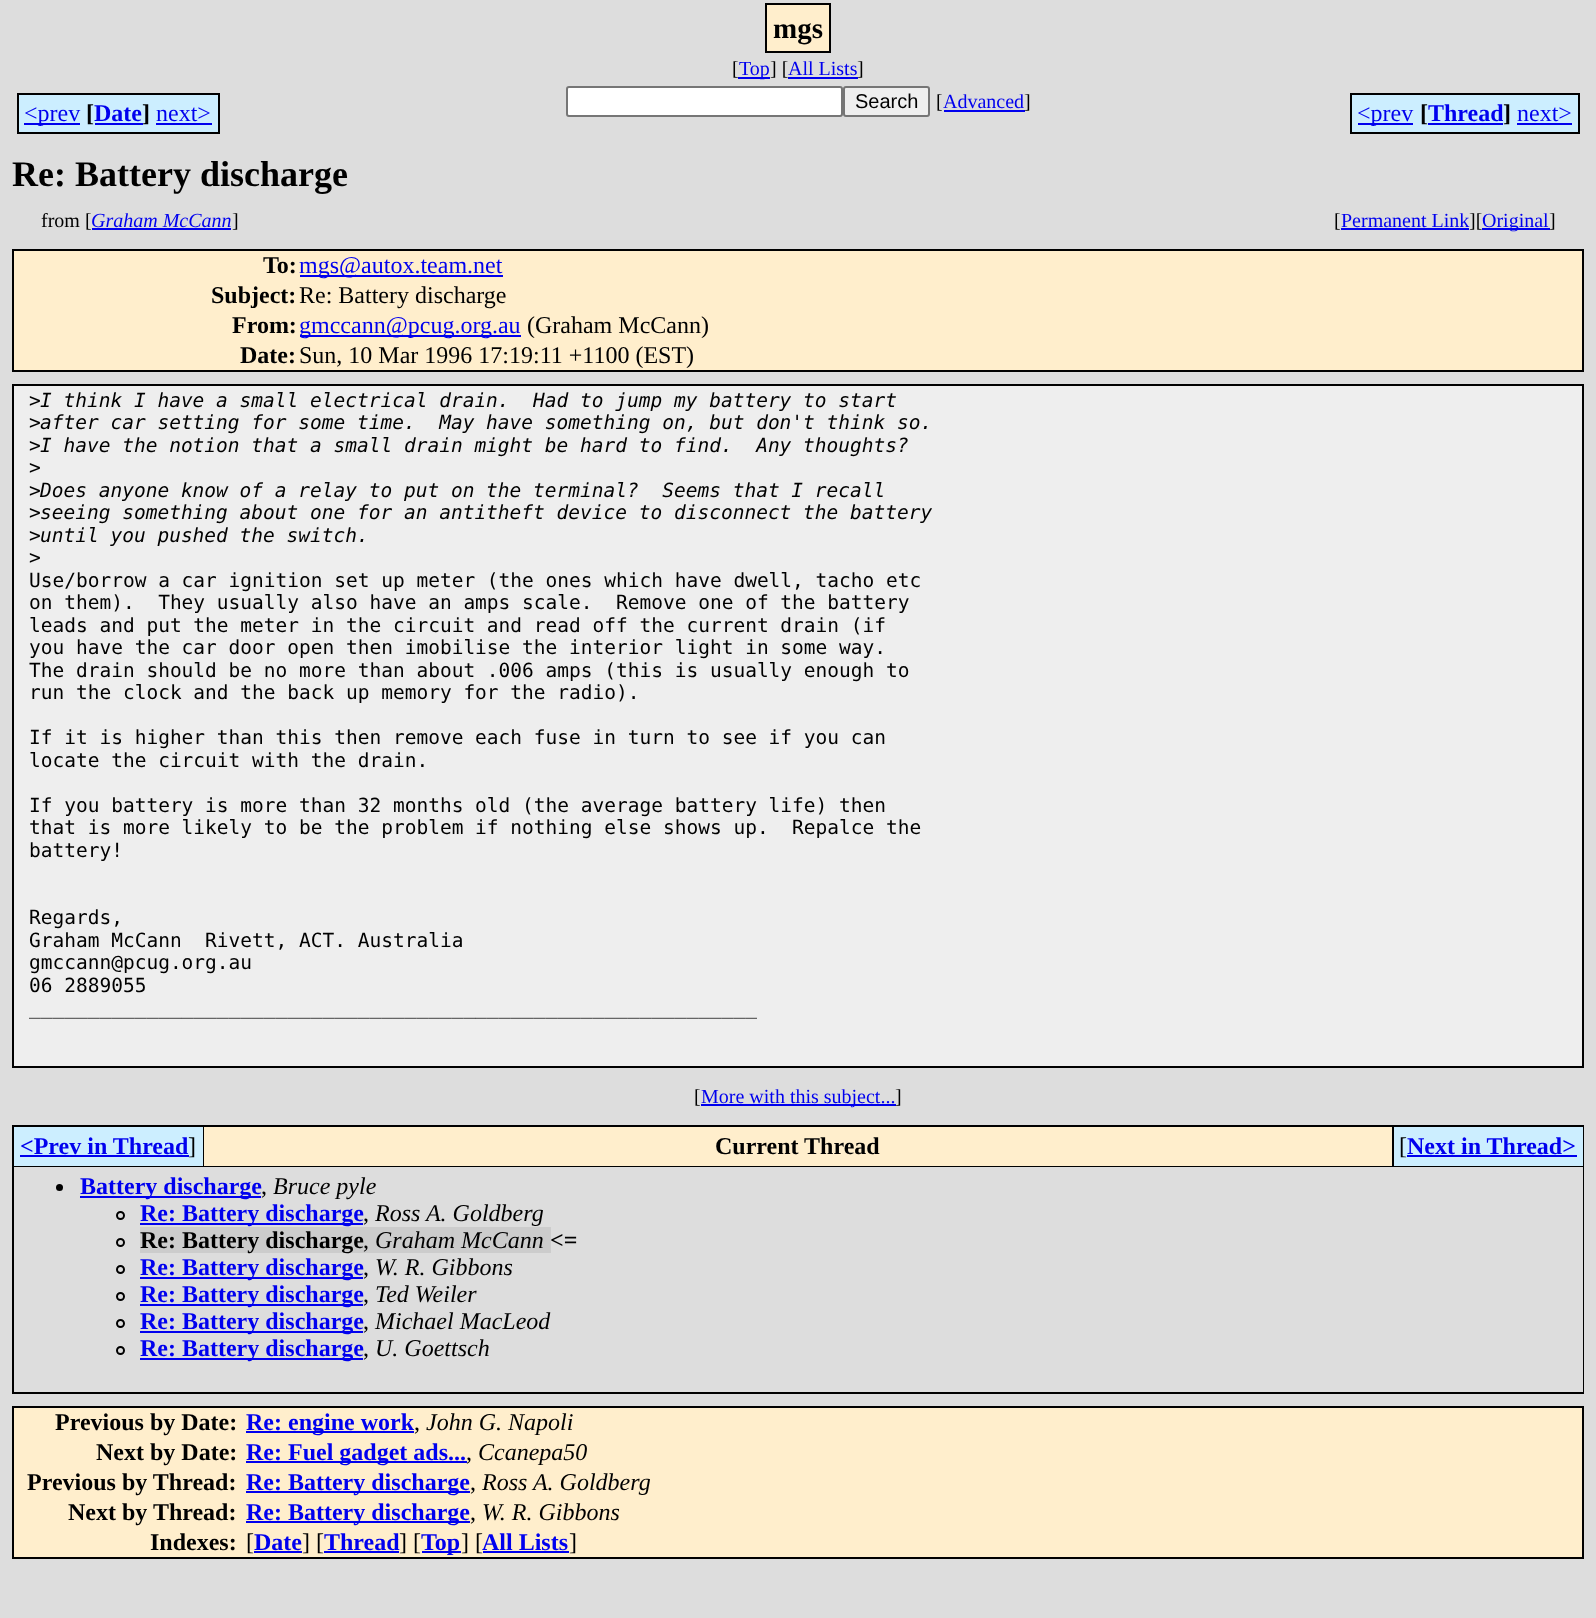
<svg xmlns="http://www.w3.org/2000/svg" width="1596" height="1618">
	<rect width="100%" height="100%" fill="#DDDDDD" />
	<rect x="766" y="4" width="64" height="48" fill="#FFEECC" stroke="#000000" stroke-width="2" />
	<text x="773" y="38" font-family="Liberation Serif" font-size="29" font-weight="700" fill="#000000">mgs</text>
	<text x="732" y="75" font-family="Liberation Serif" font-size="20" fill="#000000">[</text>
	<rect x="738" y="77" width="32" height="2" fill="#0000EE" />
	<text x="739" y="75" font-family="Liberation Serif" font-size="20" fill="#0000EE">Top</text>
	<text x="770" y="75" font-family="Liberation Serif" font-size="20" fill="#000000">] [</text>
	<text x="788" y="75" font-family="Liberation Serif" font-size="20" fill="#0000EE">All Lists</text>
	<text x="857" y="75" font-family="Liberation Serif" font-size="20" fill="#000000">]</text>
	<rect x="788" y="77" width="70" height="2" fill="#0000EE" />
	<rect x="567" y="87" width="275" height="29" rx="2" fill="#FFFFFF" stroke="#767676" stroke-width="2" />
	<rect x="844" y="87" width="85" height="29" rx="2" fill="#EFEFEF" stroke="#767676" stroke-width="2" />
	<text x="855" y="108" font-family="Liberation Sans" font-size="20" fill="#000000">Search</text>
	<text x="936" y="108" font-family="Liberation Serif" font-size="20" fill="#000000">[</text>
	<text x="943" y="108" font-family="Liberation Serif" font-size="20" fill="#0000EE">Advanced</text>
	<rect x="944" y="110" width="81" height="2" fill="#0000EE" />
	<text x="1024" y="108" font-family="Liberation Serif" font-size="20" fill="#000000">]</text>
	<rect x="19" y="95" width="61" height="37" fill="#CCEEFF" />
	<rect x="24" y="123" width="56" height="2" fill="#0000EE" />
	<rect x="80" y="93" width="6" height="41" fill="#CCEEFF" />
	<text x="24" y="121" font-family="Liberation Serif" font-size="24" fill="#0000EE">&lt;prev</text>
	<rect x="17" y="93" width="63" height="2" fill="#000000" />
	<rect x="17" y="132" width="63" height="2" fill="#000000" />
	<rect x="17" y="93" width="2" height="41" fill="#000000" />
	<rect x="80" y="132" width="63" height="2" fill="#000000" />
	<rect x="86" y="95" width="57" height="37" fill="#CCEEFF" />
	<text x="86" y="121" font-family="Liberation Serif" font-size="24" font-weight="700" fill="#000000">[</text>
	<text x="94" y="121" font-family="Liberation Serif" font-size="24" font-weight="700" fill="#0000EE">Date</text>
	<rect x="80" y="93" width="63" height="2" fill="#000000" />
	<rect x="143" y="93" width="13" height="41" fill="#CCEEFF" />
	<rect x="143" y="93" width="76" height="2" fill="#000000" />
	<text x="142" y="121" font-family="Liberation Serif" font-size="24" font-weight="700" fill="#000000">]</text>
	<rect x="143" y="132" width="13" height="2" fill="#000000" />
	<rect x="95" y="123" width="48" height="2" fill="#0000EE" />
	<rect x="156" y="95" width="62" height="37" fill="#CCEEFF" />
	<text x="156" y="121" font-family="Liberation Serif" font-size="24" fill="#0000EE">next&gt;</text>
	<rect x="218" y="93" width="2" height="41" fill="#000000" />
	<rect x="156" y="132" width="63" height="2" fill="#000000" />
	<rect x="156" y="123" width="56" height="2" fill="#0000EE" />
	<rect x="1352" y="95" width="61" height="37" fill="#CCEEFF" />
	<rect x="1358" y="123" width="55" height="2" fill="#0000EE" />
	<rect x="1413" y="93" width="6" height="41" fill="#CCEEFF" />
	<text x="1357" y="121" font-family="Liberation Serif" font-size="24" fill="#0000EE">&lt;prev</text>
	<rect x="1350" y="93" width="63" height="2" fill="#000000" />
	<rect x="1350" y="132" width="63" height="2" fill="#000000" />
	<rect x="1350" y="93" width="2" height="41" fill="#000000" />
	<rect x="1413" y="132" width="90" height="2" fill="#000000" />
	<rect x="1419" y="95" width="84" height="37" fill="#CCEEFF" />
	<text x="1420" y="121" font-family="Liberation Serif" font-size="24" font-weight="700" fill="#000000">[</text>
	<rect x="1428" y="123" width="75" height="2" fill="#0000EE" />
	<text x="1428" y="121" font-family="Liberation Serif" font-size="24" font-weight="700" fill="#0000EE">Thread</text>
	<rect x="1413" y="93" width="90" height="2" fill="#000000" />
	<rect x="1503" y="93" width="14" height="41" fill="#CCEEFF" />
	<rect x="1503" y="93" width="77" height="2" fill="#000000" />
	<text x="1503" y="121" font-family="Liberation Serif" font-size="24" font-weight="700" fill="#000000">]</text>
	<rect x="1503" y="132" width="14" height="2" fill="#000000" />
	<rect x="1517" y="95" width="61" height="37" fill="#CCEEFF" />
	<text x="1517" y="121" font-family="Liberation Serif" font-size="24" fill="#0000EE">next&gt;</text>
	<rect x="1578" y="93" width="2" height="41" fill="#000000" />
	<rect x="1517" y="132" width="63" height="2" fill="#000000" />
	<rect x="1517" y="123" width="55" height="2" fill="#0000EE" />
	<text x="12" y="186" font-family="Liberation Serif" font-size="36" font-weight="700" fill="#000000">Re: Battery discharge</text>
	<text x="41" y="227" font-family="Liberation Serif" font-size="20" fill="#000000">from [</text>
	<text x="91" y="227" font-family="Liberation Serif" font-size="20" font-style="italic" fill="#0000EE">Graham McCann</text>
	<text x="232" y="227" font-family="Liberation Serif" font-size="20" fill="#000000">]</text>
	<rect x="92" y="228" width="139" height="2" fill="#0000EE" />
	<text x="1334" y="227" font-family="Liberation Serif" font-size="20" fill="#000000">[</text>
	<text x="1341" y="227" font-family="Liberation Serif" font-size="20" fill="#0000EE">Permanent Link</text>
	<text x="1469" y="227" font-family="Liberation Serif" font-size="20" fill="#000000">][</text>
	<rect x="1341" y="228" width="128" height="2" fill="#0000EE" />
	<rect x="1482" y="228" width="68" height="2" fill="#0000EE" />
	<text x="1482" y="227" font-family="Liberation Serif" font-size="20" fill="#0000EE">Original</text>
	<text x="1549" y="227" font-family="Liberation Serif" font-size="20" fill="#000000">]</text>
	<rect x="13" y="250" width="1570" height="121" fill="#FFEECC" stroke="#000000" stroke-width="2" />
	<text x="263" y="273" font-family="Liberation Serif" font-size="24" font-weight="700" fill="#000000">To:</text>
	<rect x="300" y="275" width="203" height="2" fill="#0000EE" />
	<text x="299" y="273" font-family="Liberation Serif" font-size="24" fill="#0000EE">mgs@autox.team.net</text>
	<text x="211" y="303" font-family="Liberation Serif" font-size="24" font-weight="700" fill="#000000">Subject:</text>
	<text x="299" y="303" font-family="Liberation Serif" font-size="24" fill="#000000">Re: Battery discharge</text>
	<text x="232" y="333" font-family="Liberation Serif" font-size="24" font-weight="700" fill="#000000">From:</text>
	<rect x="300" y="335" width="221" height="2" fill="#0000EE" />
	<text x="299" y="333" font-family="Liberation Serif" font-size="24" fill="#0000EE">gmccann@pcug.org.au</text>
	<text x="527" y="333" font-family="Liberation Serif" font-size="24" fill="#000000">(Graham McCann)</text>
	<text x="240" y="363" font-family="Liberation Serif" font-size="24" font-weight="700" fill="#000000">Date:</text>
	<text x="299" y="363" font-family="Liberation Serif" font-size="24" fill="#000000">Sun, 10 Mar 1996 17:19:11 +1100 (EST)</text>
	<rect x="13" y="385" width="1570" height="682" fill="#EEEEEE" stroke="#000000" stroke-width="2" />
	<text x="29" y="407" font-family="DejaVu Sans Mono" font-size="19.5" fill="#000000">&gt;</text>
	<text x="40" y="407" font-family="DejaVu Sans Mono" font-size="19.5" font-style="italic" fill="#000000" xml:space="preserve">I think I have a small electrical drain.  Had to jump my battery to start</text>
	<text x="29" y="429" font-family="DejaVu Sans Mono" font-size="19.5" fill="#000000">&gt;</text>
	<text x="40" y="429" font-family="DejaVu Sans Mono" font-size="19.5" font-style="italic" fill="#000000" xml:space="preserve">after car setting for some time.  May have something on, but don't think so.</text>
	<text x="29" y="452" font-family="DejaVu Sans Mono" font-size="19.5" fill="#000000">&gt;</text>
	<text x="40" y="452" font-family="DejaVu Sans Mono" font-size="19.5" font-style="italic" fill="#000000" xml:space="preserve">I have the notion that a small drain might be hard to find.  Any thoughts?</text>
	<g font-family="DejaVu Sans Mono" font-size="19.5" fill="#000000">
		<text x="29" y="474">&gt;</text>
		<text x="29" y="497">&gt;</text>
	</g>
	<text x="40" y="497" font-family="DejaVu Sans Mono" font-size="19.5" font-style="italic" fill="#000000" xml:space="preserve">Does anyone know of a relay to put on the terminal?  Seems that I recall</text>
	<text x="29" y="519" font-family="DejaVu Sans Mono" font-size="19.5" fill="#000000">&gt;</text>
	<text x="40" y="519" font-family="DejaVu Sans Mono" font-size="19.5" font-style="italic" fill="#000000">seeing something about one for an antitheft device to disconnect the battery</text>
	<text x="29" y="542" font-family="DejaVu Sans Mono" font-size="19.5" fill="#000000">&gt;</text>
	<text x="40" y="542" font-family="DejaVu Sans Mono" font-size="19.5" font-style="italic" fill="#000000">until you pushed the switch.</text>
	<g font-family="DejaVu Sans Mono" font-size="19.5" fill="#000000">
		<text x="29" y="564">&gt;</text>
		<text x="29" y="587">Use/borrow a car ignition set up meter (the ones which have dwell, tacho etc</text>
		<text x="29" y="609" xml:space="preserve">on them).  They usually also have an amps scale.  Remove one of the battery</text>
		<text x="29" y="632">leads and put the meter in the circuit and read off the current drain (if</text>
		<text x="29" y="654">you have the car door open then imobilise the interior light in some way.</text>
		<text x="29" y="677">The drain should be no more than about .006 amps (this is usually enough to</text>
		<text x="29" y="699">run the clock and the back up memory for the radio).</text>
		<text x="29" y="744">If it is higher than this then remove each fuse in turn to see if you can</text>
		<text x="29" y="767">locate the circuit with the drain.</text>
		<text x="29" y="812">If you battery is more than 32 months old (the average battery life) then</text>
		<text x="29" y="834" xml:space="preserve">that is more likely to be the problem if nothing else shows up.  Repalce the</text>
		<text x="29" y="857">battery!</text>
		<text x="29" y="924">Regards,</text>
		<text x="29" y="947" xml:space="preserve">Graham McCann  Rivett, ACT. Australia</text>
		<text x="29" y="969">gmccann@pcug.org.au</text>
		<text x="29" y="992">06 2889055</text>
		<text x="29" y="1014">______________________________________________________________</text>
	</g>
	<text x="694" y="1103" font-family="Liberation Serif" font-size="20" fill="#000000">[</text>
	<rect x="701" y="1104" width="195" height="2" fill="#0000EE" />
	<text x="701" y="1103" font-family="Liberation Serif" font-size="20" fill="#0000EE">More with this subject...</text>
	<text x="895" y="1103" font-family="Liberation Serif" font-size="20" fill="#000000">]</text>
	<rect x="12" y="1125" width="1572" height="269" fill="#000000" />
	<rect x="14" y="1127" width="189" height="39" fill="#CCEEFF" />
	<text x="20" y="1154" font-family="Liberation Serif" font-size="24" font-weight="700" fill="#0000EE">&lt;Prev in Thread</text>
	<rect x="20" y="1155" width="169" height="2" fill="#0000EE" />
	<text x="188" y="1154" font-family="Liberation Serif" font-size="24" fill="#000000">]</text>
	<rect x="204" y="1127" width="1188" height="39" fill="#FFEECC" />
	<text x="715" y="1154" font-family="Liberation Serif" font-size="24" font-weight="700" fill="#000000">Current Thread</text>
	<rect x="1394" y="1127" width="189" height="39" fill="#CCEEFF" />
	<text x="1399" y="1154" font-family="Liberation Serif" font-size="24" fill="#000000">[</text>
	<text x="1407" y="1154" font-family="Liberation Serif" font-size="24" font-weight="700" fill="#0000EE">Next in Thread&gt;</text>
	<rect x="1407" y="1155" width="170" height="2" fill="#0000EE" />
	<rect x="14" y="1167" width="1569" height="225" fill="#DDDDDD" />
	<circle cx="59.5" cy="1187.5" r="3.5" fill="#000000" />
	<rect x="80" y="1196" width="181" height="2" fill="#0000EE" />
	<text x="80" y="1194" font-family="Liberation Serif" font-size="24" font-weight="700" fill="#0000EE">Battery discharge</text>
	<text x="273" y="1194" font-family="Liberation Serif" font-size="24" font-style="italic" fill="#000000">Bruce pyle</text>
	<text x="261" y="1194" font-family="Liberation Serif" font-size="24" fill="#000000">,</text>
	<circle cx="120.5" cy="1215.5" r="3.5" fill="none" stroke="#000000" stroke-width="2" />
	<rect x="140" y="1223" width="223" height="2" fill="#0000EE" />
	<text x="140" y="1221" font-family="Liberation Serif" font-size="24" font-weight="700" fill="#0000EE">Re: Battery discharge</text>
	<text x="375" y="1221" font-family="Liberation Serif" font-size="24" font-style="italic" fill="#000000">Ross A. Goldberg</text>
	<text x="363" y="1221" font-family="Liberation Serif" font-size="24" fill="#000000">,</text>
	<circle cx="120.5" cy="1242.5" r="3.5" fill="none" stroke="#000000" stroke-width="2" />
	<rect x="140" y="1227" width="411" height="26" fill="#CCCCCC" />
	<text x="140" y="1248" font-family="Liberation Serif" font-size="24" font-weight="700" fill="#000000">Re: Battery discharge</text>
	<text x="375" y="1248" font-family="Liberation Serif" font-size="24" font-style="italic" fill="#000000">Graham McCann</text>
	<text x="550" y="1248" font-family="Liberation Serif" font-size="24" font-weight="700" fill="#000000">&lt;=</text>
	<text x="363" y="1248" font-family="Liberation Serif" font-size="24" fill="#000000">,</text>
	<circle cx="120.5" cy="1269.5" r="3.5" fill="none" stroke="#000000" stroke-width="2" />
	<rect x="140" y="1277" width="223" height="2" fill="#0000EE" />
	<text x="140" y="1275" font-family="Liberation Serif" font-size="24" font-weight="700" fill="#0000EE">Re: Battery discharge</text>
	<text x="375" y="1275" font-family="Liberation Serif" font-size="24" font-style="italic" fill="#000000">W. R. Gibbons</text>
	<text x="363" y="1275" font-family="Liberation Serif" font-size="24" fill="#000000">,</text>
	<circle cx="120.5" cy="1296.5" r="3.5" fill="none" stroke="#000000" stroke-width="2" />
	<rect x="140" y="1304" width="223" height="2" fill="#0000EE" />
	<text x="140" y="1302" font-family="Liberation Serif" font-size="24" font-weight="700" fill="#0000EE">Re: Battery discharge</text>
	<text x="375" y="1302" font-family="Liberation Serif" font-size="24" font-style="italic" fill="#000000">Ted Weiler</text>
	<text x="363" y="1302" font-family="Liberation Serif" font-size="24" fill="#000000">,</text>
	<circle cx="120.5" cy="1323.5" r="3.5" fill="none" stroke="#000000" stroke-width="2" />
	<rect x="140" y="1331" width="223" height="2" fill="#0000EE" />
	<text x="140" y="1329" font-family="Liberation Serif" font-size="24" font-weight="700" fill="#0000EE">Re: Battery discharge</text>
	<text x="375" y="1329" font-family="Liberation Serif" font-size="24" font-style="italic" fill="#000000">Michael MacLeod</text>
	<text x="363" y="1329" font-family="Liberation Serif" font-size="24" fill="#000000">,</text>
	<circle cx="120.5" cy="1350.5" r="3.5" fill="none" stroke="#000000" stroke-width="2" />
	<rect x="140" y="1358" width="223" height="2" fill="#0000EE" />
	<text x="140" y="1356" font-family="Liberation Serif" font-size="24" font-weight="700" fill="#0000EE">Re: Battery discharge</text>
	<text x="375" y="1356" font-family="Liberation Serif" font-size="24" font-style="italic" fill="#000000">U. Goettsch</text>
	<text x="363" y="1356" font-family="Liberation Serif" font-size="24" fill="#000000">,</text>
	<rect x="13" y="1407" width="1570" height="151" fill="#FFEECC" stroke="#000000" stroke-width="2" />
	<text x="55" y="1430" font-family="Liberation Serif" font-size="24" font-weight="700" fill="#000000">Previous by Date:</text>
	<rect x="246" y="1431" width="168" height="2" fill="#0000EE" />
	<text x="246" y="1430" font-family="Liberation Serif" font-size="24" font-weight="700" fill="#0000EE">Re: engine work</text>
	<text x="414" y="1430" font-family="Liberation Serif" font-size="24" fill="#000000">,</text>
	<text x="426" y="1430" font-family="Liberation Serif" font-size="24" font-style="italic" fill="#000000">John G. Napoli</text>
	<text x="96" y="1460" font-family="Liberation Serif" font-size="24" font-weight="700" fill="#000000">Next by Date:</text>
	<rect x="246" y="1461" width="221" height="2" fill="#0000EE" />
	<text x="246" y="1460" font-family="Liberation Serif" font-size="24" font-weight="700" fill="#0000EE">Re: Fuel gadget ads...</text>
	<text x="466" y="1460" font-family="Liberation Serif" font-size="24" fill="#000000">,</text>
	<text x="478" y="1460" font-family="Liberation Serif" font-size="24" font-style="italic" fill="#000000">Ccanepa50</text>
	<text x="27" y="1490" font-family="Liberation Serif" font-size="24" font-weight="700" fill="#000000">Previous by Thread:</text>
	<rect x="246" y="1491" width="224" height="2" fill="#0000EE" />
	<text x="246" y="1490" font-family="Liberation Serif" font-size="24" font-weight="700" fill="#0000EE">Re: Battery discharge</text>
	<text x="470" y="1490" font-family="Liberation Serif" font-size="24" fill="#000000">,</text>
	<text x="482" y="1490" font-family="Liberation Serif" font-size="24" font-style="italic" fill="#000000">Ross A. Goldberg</text>
	<text x="68" y="1520" font-family="Liberation Serif" font-size="24" font-weight="700" fill="#000000">Next by Thread:</text>
	<rect x="246" y="1521" width="224" height="2" fill="#0000EE" />
	<text x="246" y="1520" font-family="Liberation Serif" font-size="24" font-weight="700" fill="#0000EE">Re: Battery discharge</text>
	<text x="470" y="1520" font-family="Liberation Serif" font-size="24" fill="#000000">,</text>
	<text x="482" y="1520" font-family="Liberation Serif" font-size="24" font-style="italic" fill="#000000">W. R. Gibbons</text>
	<text x="150" y="1550" font-family="Liberation Serif" font-size="24" font-weight="700" fill="#000000">Indexes:</text>
	<text x="246" y="1550" font-family="Liberation Serif" font-size="24" fill="#000000">[</text>
	<text x="254" y="1550" font-family="Liberation Serif" font-size="24" font-weight="700" fill="#0000EE">Date</text>
	<rect x="254" y="1551" width="48" height="2" fill="#0000EE" />
	<text x="302" y="1550" font-family="Liberation Serif" font-size="24" fill="#000000">] [</text>
	<text x="324" y="1550" font-family="Liberation Serif" font-size="24" font-weight="700" fill="#0000EE">Thread</text>
	<rect x="324" y="1551" width="75" height="2" fill="#0000EE" />
	<text x="399" y="1550" font-family="Liberation Serif" font-size="24" fill="#000000">] [</text>
	<rect x="422" y="1551" width="39" height="2" fill="#0000EE" />
	<text x="421" y="1550" font-family="Liberation Serif" font-size="24" font-weight="700" fill="#0000EE">Top</text>
	<text x="461" y="1550" font-family="Liberation Serif" font-size="24" fill="#000000">] [</text>
	<text x="482" y="1550" font-family="Liberation Serif" font-size="24" font-weight="700" fill="#0000EE">All Lists</text>
	<rect x="483" y="1551" width="86" height="2" fill="#0000EE" />
	<text x="569" y="1550" font-family="Liberation Serif" font-size="24" fill="#000000">]</text>
</svg>
